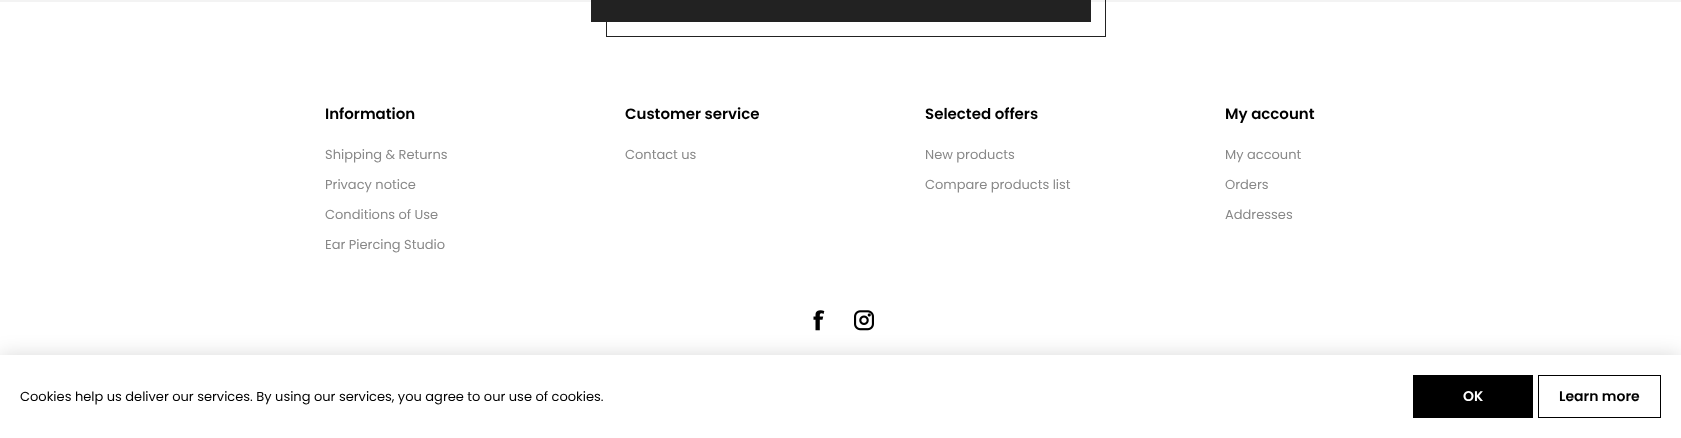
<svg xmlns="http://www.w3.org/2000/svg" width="1681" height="438">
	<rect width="100%" height="100%" fill="#FFFFFF" />
	<rect x="0" y="0" width="1681" height="2" fill="#F3F3F3" />
	<rect x="591" y="0" width="500" height="22" fill="#222222" />
	<rect x="606.5" y="-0.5" width="499" height="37" fill="none" stroke="#222222" />
	<text x="325" y="119" font-family="Poppins" font-size="15" font-weight="600" fill="#000000">Information</text>
	<g font-family="Poppins" font-size="13" fill="#888888">
		<text x="325" y="159">Shipping &amp; Returns</text>
		<text x="325" y="189">Privacy notice</text>
		<text x="325" y="219">Conditions of Use</text>
		<text x="325" y="249">Ear Piercing Studio</text>
	</g>
	<text x="625" y="119" font-family="Poppins" font-size="15" font-weight="600" fill="#000000">Customer service</text>
	<text x="625" y="159" font-family="Poppins" font-size="13" fill="#888888">Contact us</text>
	<text x="925" y="119" font-family="Poppins" font-size="15" font-weight="600" fill="#000000">Selected offers</text>
	<g font-family="Poppins" font-size="13" fill="#888888">
		<text x="925" y="159">New products</text>
		<text x="925" y="189">Compare products list</text>
	</g>
	<text x="1225" y="119" font-family="Poppins" font-size="15" font-weight="600" fill="#000000">My account</text>
	<g font-family="Poppins" font-size="13" fill="#888888">
		<text x="1225" y="159">My account</text>
		<text x="1225" y="189">Orders</text>
		<text x="1225" y="219">Addresses</text>
	</g>
	<image x="813" y="310" width="12" height="21" href="assets/img1.png" />
	<image x="854" y="310" width="20" height="21" href="assets/img2.png" />
	<rect x="0" y="355" width="1681" height="83" fill="#000000" fill-opacity="0.15" filter="blur(10px)" />
	<rect x="0" y="355" width="1681" height="83" fill="#FFFFFF" />
	<text x="20" y="401" font-family="Poppins" font-size="13" fill="#000000">Cookies help us deliver our services. By using our services, you agree to our use of cookies.</text>
	<rect x="1413" y="375" width="120" height="43" fill="#000000" />
	<text x="1463" y="401" font-family="Poppins" font-size="14" font-weight="600" fill="#FFFFFF">OK</text>
	<rect x="1538.5" y="375.5" width="122" height="42" fill="none" stroke="#000000" />
	<text x="1559" y="401" font-family="Poppins" font-size="14" font-weight="600" fill="#000000">Learn more</text>
</svg>
